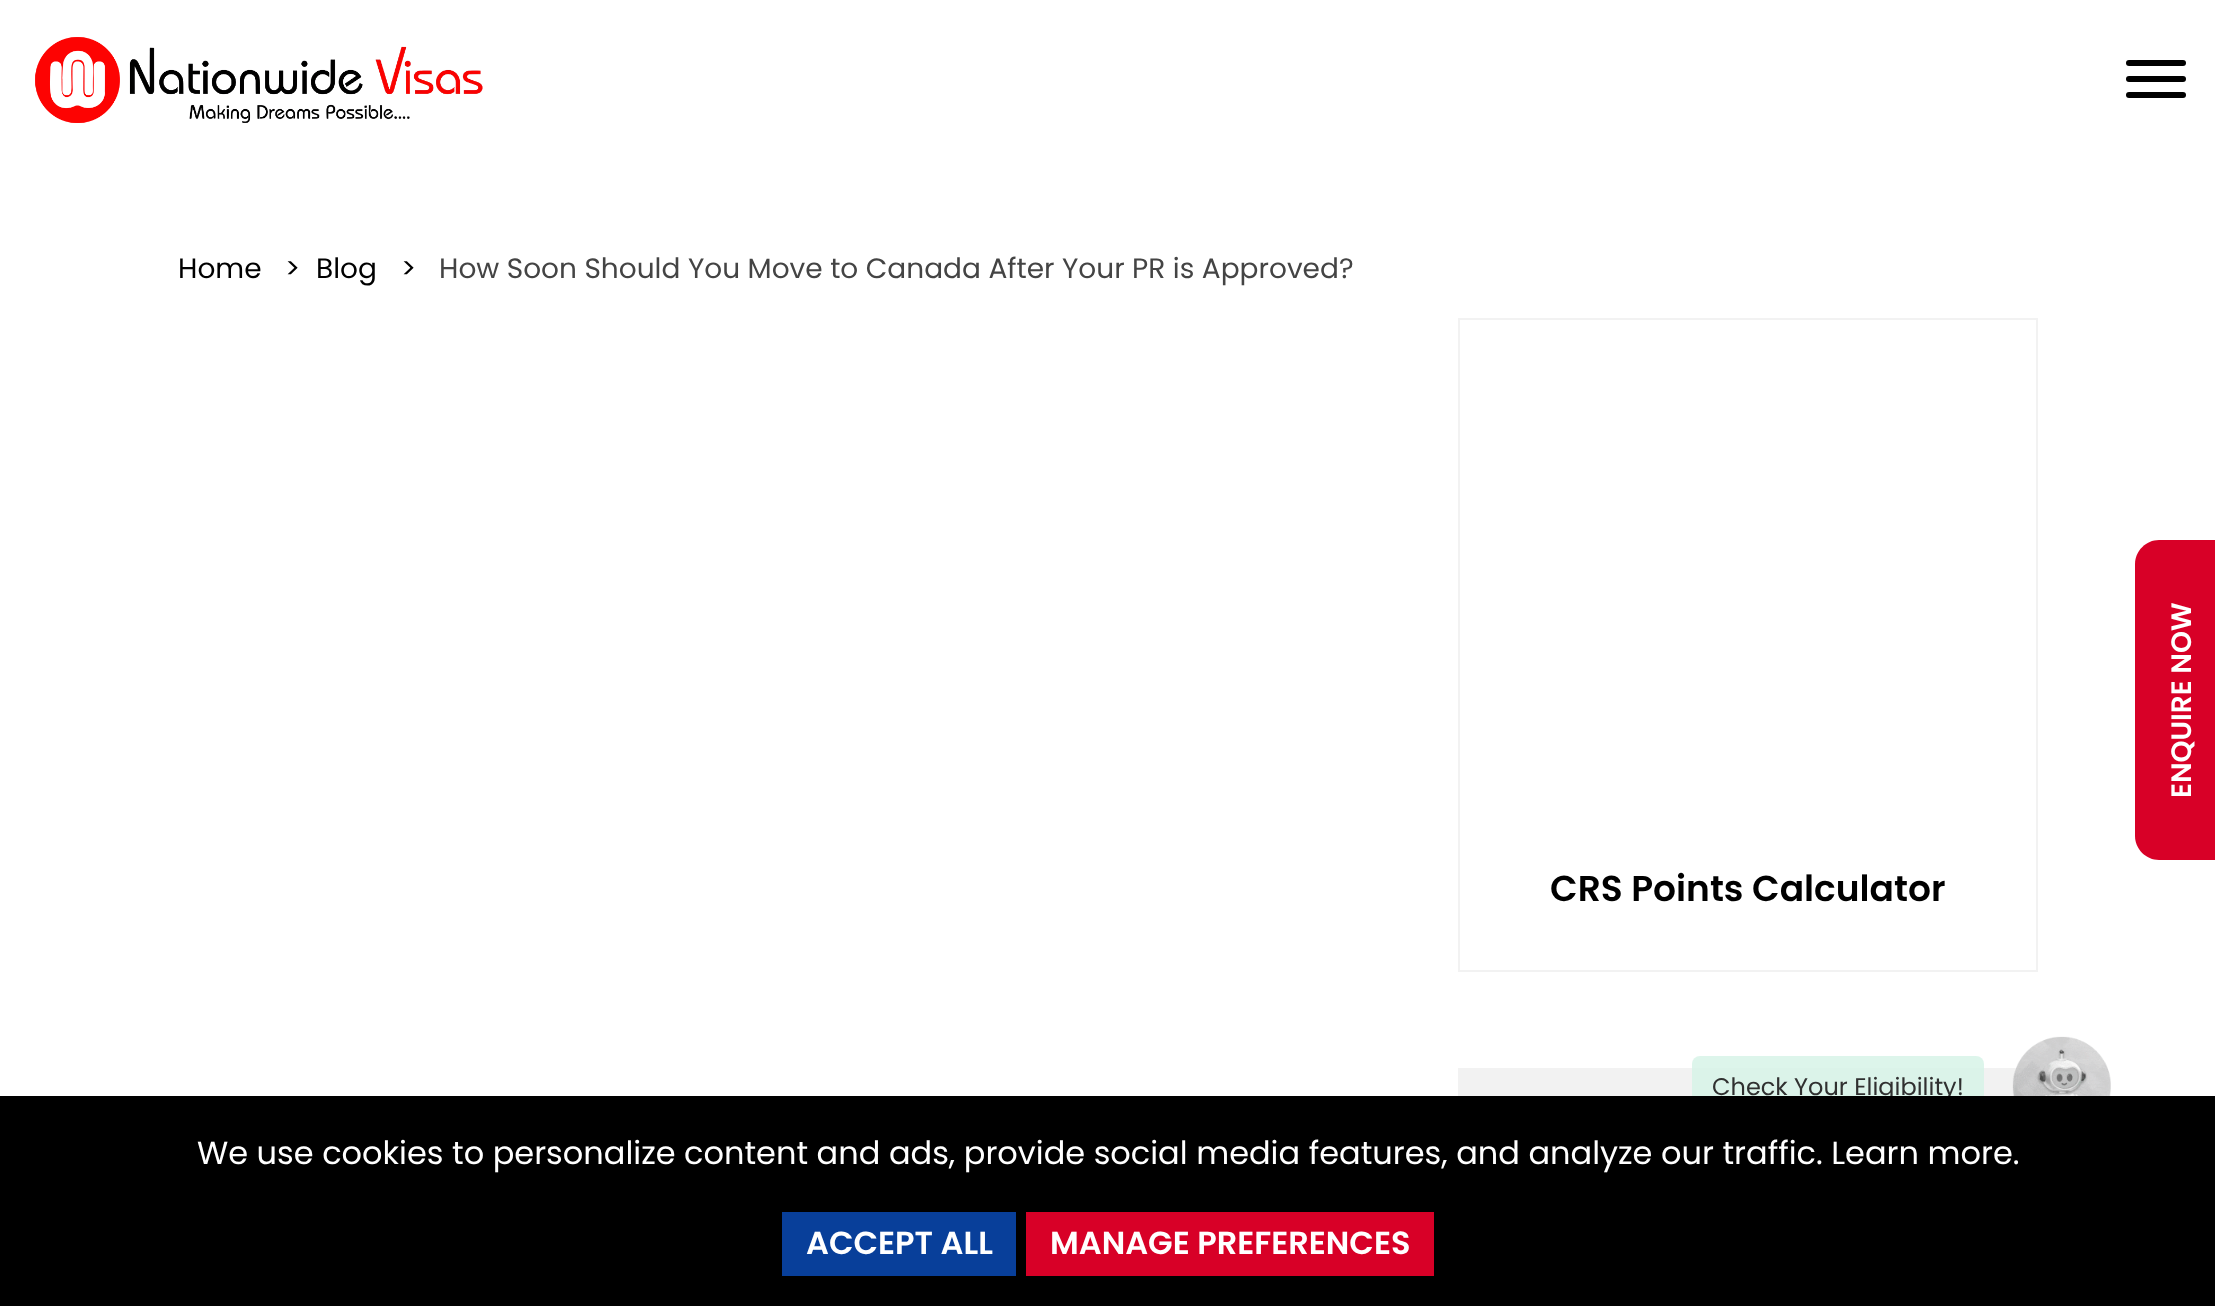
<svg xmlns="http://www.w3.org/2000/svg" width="2215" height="1306">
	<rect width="100%" height="100%" fill="#FFFFFF" />
	<image x="35" y="37" width="448" height="86" href="assets/img1.png" />
	<rect x="2126" y="76" width="60" height="6" rx="3" fill="#000000" />
	<rect x="2126" y="60" width="60" height="6" rx="3" fill="#000000" />
	<rect x="2126" y="92" width="60" height="6" rx="3" fill="#000000" />
	<g font-family="Poppins" font-size="28" fill="#000000">
		<text x="178" y="278">Home</text>
		<text x="285" y="278">&gt;</text>
		<text x="316" y="278">Blog</text>
		<text x="401" y="278">&gt;</text>
	</g>
	<text x="439" y="278" font-family="Poppins" font-size="28" fill="#444444">How Soon Should You Move to Canada After Your PR is Approved?</text>
	<rect x="1459" y="319" width="578" height="652" fill="none" stroke="#F2F2F2" stroke-width="2" />
	<text x="1550" y="901" font-family="Poppins" font-size="36" font-weight="600" fill="#000000">CRS Points Calculator</text>
	<rect x="1458" y="1068" width="580" height="28" fill="#F2F2F2" />
	<path d="M2135 836V564C2135 551 2146 540 2159 540H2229V860H2159C2146 860 2135 849 2135 836Z" fill="#D80027" />
	<text x="2191" y="798" transform="rotate(-90 2191 798)" font-family="Poppins" font-size="28" font-weight="600" fill="#FFFFFF">ENQUIRE NOW</text>
	<rect x="1692" y="1056" width="292" height="62" rx="8" fill="#D4F3E6" fill-opacity="0.8" />
	<text x="1712" y="1095" font-family="Poppins" font-size="24" fill="#303030">Check Your Eligibility!</text>
	<image x="2012" y="1036" width="99" height="60" href="assets/img2.png" />
	<rect x="0" y="1096" width="2215" height="210" fill="#000000" />
	<text x="197" y="1164" font-family="Poppins" font-size="32" fill="#FFFFFF">We use cookies to personalize content and ads, provide social media features, and analyze our traffic. Learn more.</text>
	<rect x="782" y="1212" width="234" height="64" fill="#083F9A" />
	<text x="806" y="1254" font-family="Poppins" font-size="32" font-weight="600" fill="#FFFFFF">ACCEPT ALL</text>
	<rect x="1026" y="1212" width="408" height="64" fill="#D80027" />
	<text x="1050" y="1254" font-family="Poppins" font-size="32" font-weight="600" fill="#FFFFFF">MANAGE PREFERENCES</text>
</svg>
